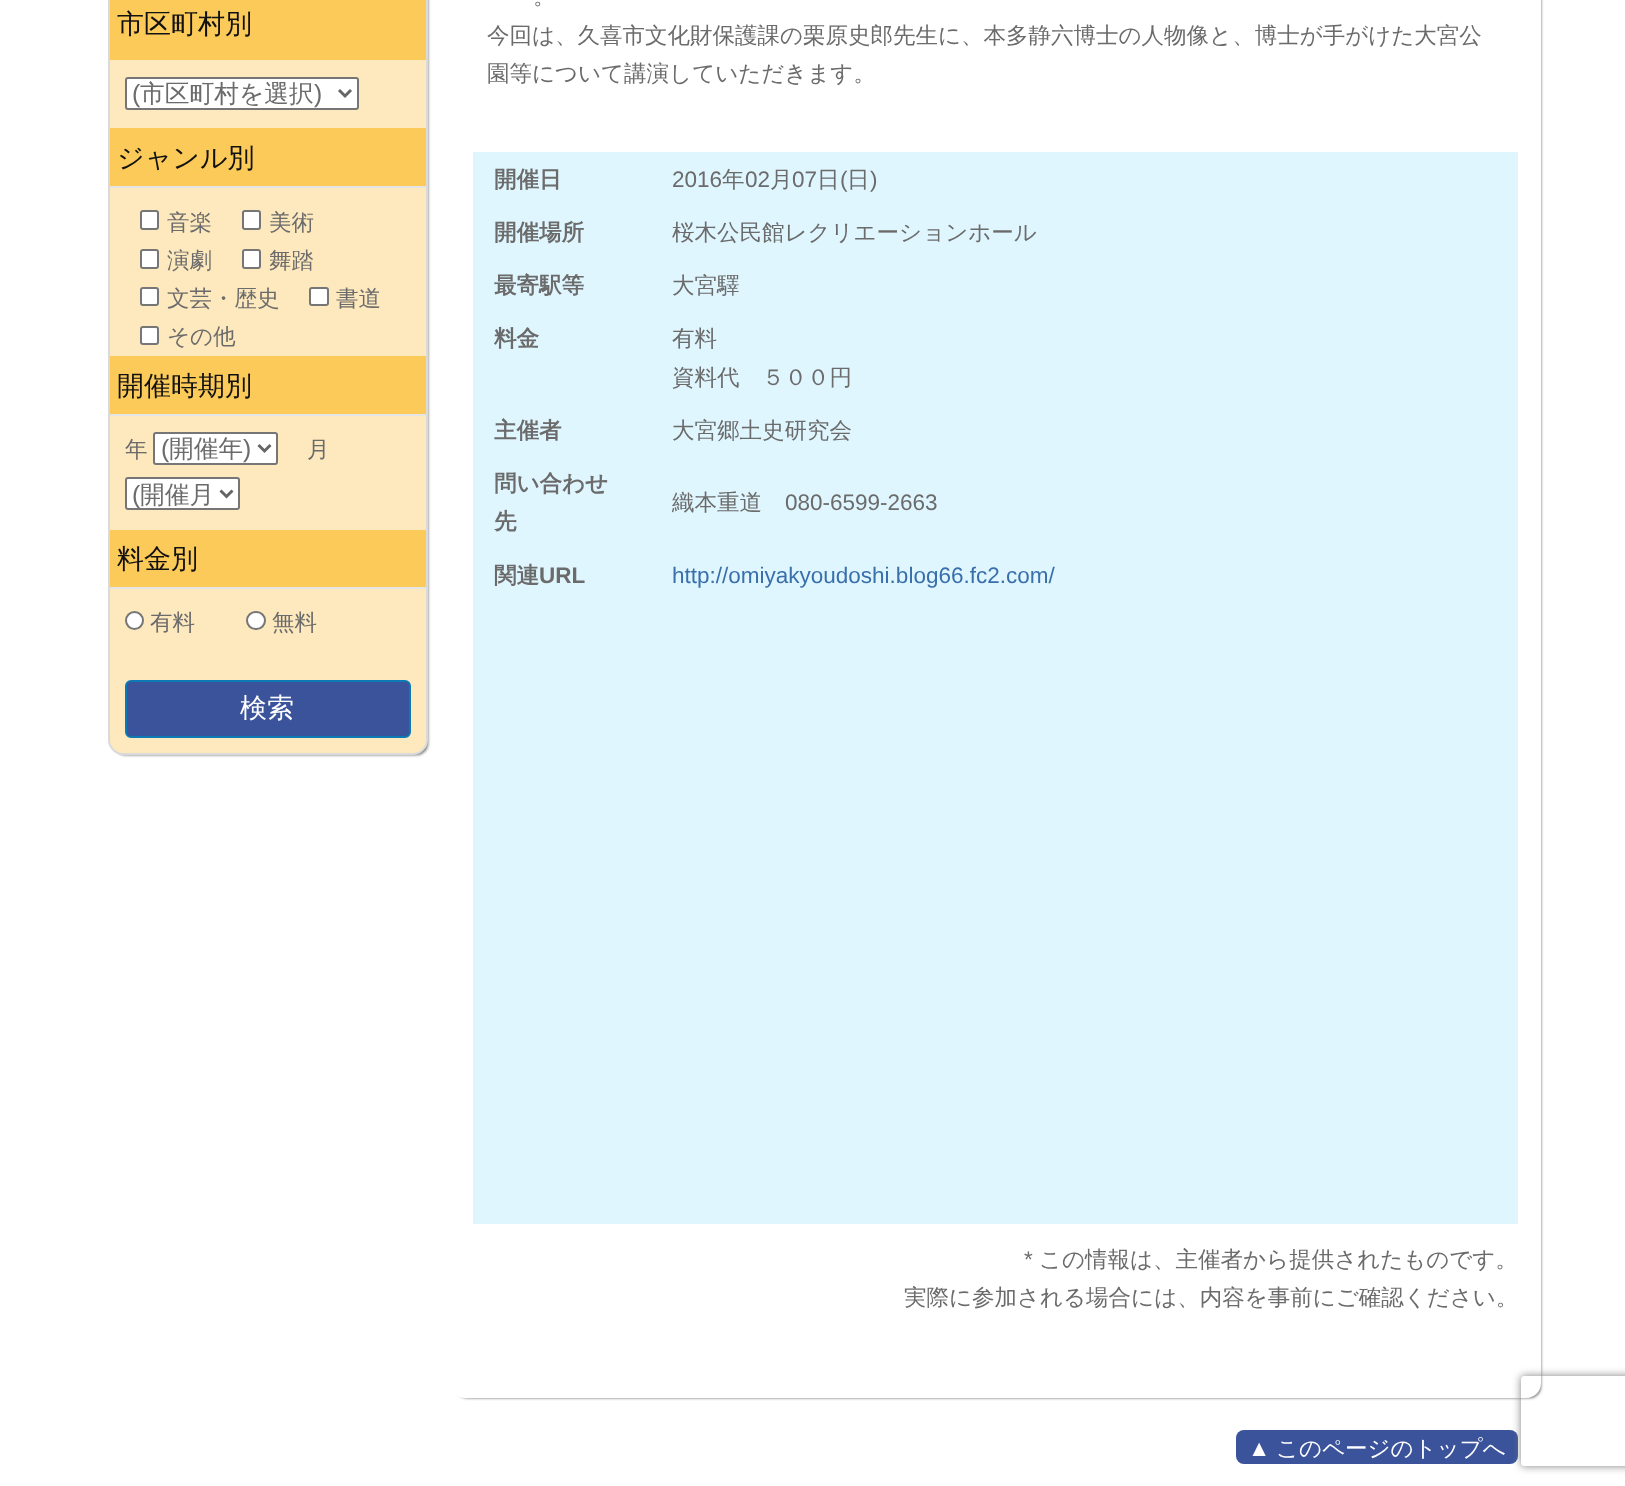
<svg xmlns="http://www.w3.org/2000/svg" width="1625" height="1486">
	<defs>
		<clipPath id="clip1"><path d="M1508 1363H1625V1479H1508ZM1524 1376H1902C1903.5 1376 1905 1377.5 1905 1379V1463C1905 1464.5 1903.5 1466 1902 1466H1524C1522.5 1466 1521 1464.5 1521 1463V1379C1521 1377.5 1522.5 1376 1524 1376Z" clip-rule="evenodd" /></clipPath>
	</defs>
	<rect width="100%" height="100%" fill="#FFFFFF" />
	<rect x="114" y="-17" width="314" height="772" rx="12" fill="#000000" fill-opacity="0.6" filter="blur(1.5px)" />
	<path d="M109-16H427V740C427 747.5 420.5 754 413 754H123C115.5 754 109 747.5 109 740Z" fill="#FDE9BD" stroke="#DADADA" stroke-width="2" />
	<rect x="110" y="0" width="316" height="60" fill="#FBCA58" />
	<text x="117" y="33" font-family="WenQuanYi Zen Hei" font-size="27" font-weight="500" fill="#111111">市区町村別</text>
	<rect x="126" y="78" width="232" height="31" rx="2" fill="#FFFFFF" stroke="#767676" stroke-width="2" />
	<path d="M339 90L345 96L351 90" fill="none" stroke="#666666" stroke-width="3" />
	<text x="132" y="102" font-family="Liberation Sans" font-size="24.75" fill="#6B6B6B">(</text>
	<text x="140" y="102" font-family="WenQuanYi Zen Hei" font-size="24.75" font-weight="500" fill="#6B6B6B">市区町村を選択</text>
	<text x="314" y="102" font-family="Liberation Sans" font-size="24.75" fill="#6B6B6B">)</text>
	<rect x="110" y="128" width="316" height="58" fill="#FBCA58" />
	<rect x="110" y="186" width="316" height="2" fill="#E5E5E5" />
	<text x="117" y="167" font-family="WenQuanYi Zen Hei" font-size="27" font-weight="500" fill="#111111">ジャンル別</text>
	<rect x="141" y="211" width="17" height="18" rx="2" fill="#FFFFFF" stroke="#767676" stroke-width="2" />
	<text x="167" y="230" font-family="WenQuanYi Zen Hei" font-size="22.5" font-weight="500" fill="#6B6B6B">音楽</text>
	<rect x="243" y="211" width="17" height="18" rx="2" fill="#FFFFFF" stroke="#767676" stroke-width="2" />
	<text x="269" y="230" font-family="WenQuanYi Zen Hei" font-size="22.5" font-weight="500" fill="#6B6B6B">美術</text>
	<rect x="141" y="250" width="17" height="18" rx="2" fill="#FFFFFF" stroke="#767676" stroke-width="2" />
	<text x="167" y="268" font-family="WenQuanYi Zen Hei" font-size="22.5" font-weight="500" fill="#6B6B6B">演劇</text>
	<rect x="243" y="250" width="17" height="18" rx="2" fill="#FFFFFF" stroke="#767676" stroke-width="2" />
	<text x="269" y="268" font-family="WenQuanYi Zen Hei" font-size="22.5" font-weight="500" fill="#6B6B6B">舞踏</text>
	<rect x="141" y="288" width="17" height="17" rx="2" fill="#FFFFFF" stroke="#767676" stroke-width="2" />
	<text x="167" y="306" font-family="WenQuanYi Zen Hei" font-size="22.5" font-weight="500" fill="#6B6B6B">文芸・歴史</text>
	<rect x="310" y="288" width="18" height="17" rx="2" fill="#FFFFFF" stroke="#767676" stroke-width="2" />
	<text x="336" y="306" font-family="WenQuanYi Zen Hei" font-size="22.5" font-weight="500" fill="#6B6B6B">書道</text>
	<rect x="141" y="327" width="17" height="17" rx="2" fill="#FFFFFF" stroke="#767676" stroke-width="2" />
	<text x="167" y="344" font-family="WenQuanYi Zen Hei" font-size="22.5" font-weight="500" fill="#6B6B6B">その他</text>
	<rect x="110" y="356" width="316" height="58" fill="#FBCA58" />
	<rect x="110" y="414" width="316" height="2" fill="#E5E5E5" />
	<text x="117" y="395" font-family="WenQuanYi Zen Hei" font-size="27" font-weight="500" fill="#111111">開催時期別</text>
	<text x="125" y="457" font-family="WenQuanYi Zen Hei" font-size="22.5" font-weight="500" fill="#6B6B6B">年</text>
	<rect x="154" y="433" width="123" height="31" rx="2" fill="#FFFFFF" stroke="#767676" stroke-width="2" />
	<path d="M258.5 445L264.5 451L270.5 445" fill="none" stroke="#666666" stroke-width="3" />
	<text x="161" y="457" font-family="Liberation Sans" font-size="24.75" fill="#6B6B6B">(</text>
	<text x="169" y="457" font-family="WenQuanYi Zen Hei" font-size="24.75" font-weight="500" fill="#6B6B6B">開催年</text>
	<text x="243" y="457" font-family="Liberation Sans" font-size="24.75" fill="#6B6B6B">)</text>
	<text x="307" y="457" font-family="WenQuanYi Zen Hei" font-size="22.5" font-weight="500" fill="#6B6B6B">月</text>
	<rect x="126" y="478" width="113" height="31" rx="2" fill="#FFFFFF" stroke="#767676" stroke-width="2" />
	<path d="M220.5 490.5L226.5 496.5L232.5 490.5" fill="none" stroke="#666666" stroke-width="3" />
	<text x="132" y="503" font-family="Liberation Sans" font-size="24.75" fill="#6B6B6B">(</text>
	<text x="140" y="503" font-family="WenQuanYi Zen Hei" font-size="24.75" font-weight="500" fill="#6B6B6B">開催月</text>
	<rect x="110" y="530" width="316" height="57" fill="#FBCA58" />
	<rect x="110" y="587" width="316" height="2" fill="#E5E5E5" />
	<text x="117" y="568" font-family="WenQuanYi Zen Hei" font-size="27" font-weight="500" fill="#111111">料金別</text>
	<circle cx="134.5" cy="620.5" r="8.5" fill="#FFFFFF" stroke="#767676" stroke-width="2" />
	<text x="150" y="630" font-family="WenQuanYi Zen Hei" font-size="22.5" font-weight="500" fill="#6B6B6B">有料</text>
	<rect x="247" y="612" width="18" height="17" rx="8.5" fill="#FFFFFF" stroke="#767676" stroke-width="2" />
	<text x="272" y="630" font-family="WenQuanYi Zen Hei" font-size="22.5" font-weight="500" fill="#6B6B6B">無料</text>
	<rect x="126" y="681" width="284" height="56" rx="5" fill="#3A539B" stroke="#0D79B5" stroke-width="2" />
	<text x="240" y="717" font-family="WenQuanYi Zen Hei" font-size="27" font-weight="500" fill="#FFFFFF">検索</text>
	<rect x="456" y="-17" width="1085" height="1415" rx="12" fill="#000000" fill-opacity="0.6" filter="blur(1.5px)" />
	<path d="M450-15H1541V1383C1541 1391.5 1534.5 1398 1526 1398H465C456.5 1398 450 1391.5 450 1383Z" fill="#FFFFFF" />
	<g font-family="WenQuanYi Zen Hei" font-size="22.5" font-weight="500" fill="#6B6B6B">
		<text x="533" y="4">。</text>
		<text x="487" y="43">今回は、久喜市文化財保護課の栗原史郎先生に、本多静六博士の人物像と、博士が手がけた大宮公</text>
		<text x="487" y="81">園等について講演していただきます。</text>
	</g>
	<rect x="473" y="152" width="1045" height="1072" fill="#E0F6FF" />
	<text x="494" y="187" font-family="WenQuanYi Zen Hei" font-size="22.5" font-weight="700" fill="#6B6B6B">開催日</text>
	<text x="672" y="187" font-family="Liberation Sans" font-size="22.5" fill="#6B6B6B">2016</text>
	<text x="722" y="187" font-family="WenQuanYi Zen Hei" font-size="22.5" font-weight="500" fill="#6B6B6B">年</text>
	<text x="745" y="187" font-family="Liberation Sans" font-size="22.5" fill="#6B6B6B">02</text>
	<text x="770" y="187" font-family="WenQuanYi Zen Hei" font-size="22.5" font-weight="500" fill="#6B6B6B">月</text>
	<text x="792" y="187" font-family="Liberation Sans" font-size="22.5" fill="#6B6B6B">07</text>
	<text x="817" y="187" font-family="WenQuanYi Zen Hei" font-size="22.5" font-weight="500" fill="#6B6B6B">日</text>
	<text x="840" y="187" font-family="Liberation Sans" font-size="22.5" fill="#6B6B6B">(</text>
	<text x="847" y="187" font-family="WenQuanYi Zen Hei" font-size="22.5" font-weight="500" fill="#6B6B6B">日</text>
	<text x="870" y="187" font-family="Liberation Sans" font-size="22.5" fill="#6B6B6B">)</text>
	<text x="494" y="240" font-family="WenQuanYi Zen Hei" font-size="22.5" font-weight="700" fill="#6B6B6B">開催場所</text>
	<text x="672" y="240" font-family="WenQuanYi Zen Hei" font-size="22.5" font-weight="500" fill="#6B6B6B">桜木公民館レクリエーションホール</text>
	<text x="494" y="293" font-family="WenQuanYi Zen Hei" font-size="22.5" font-weight="700" fill="#6B6B6B">最寄駅等</text>
	<text x="672" y="293" font-family="WenQuanYi Zen Hei" font-size="22.5" font-weight="500" fill="#6B6B6B">大宮驛</text>
	<text x="494" y="346" font-family="WenQuanYi Zen Hei" font-size="22.5" font-weight="700" fill="#6B6B6B">料金</text>
	<g font-family="WenQuanYi Zen Hei" font-size="22.5" font-weight="500" fill="#6B6B6B">
		<text x="672" y="346">有料</text>
		<text x="672" y="385">資料代　５００円</text>
	</g>
	<text x="494" y="438" font-family="WenQuanYi Zen Hei" font-size="22.5" font-weight="700" fill="#6B6B6B">主催者</text>
	<text x="672" y="438" font-family="WenQuanYi Zen Hei" font-size="22.5" font-weight="500" fill="#6B6B6B">大宮郷土史研究会</text>
	<g font-family="WenQuanYi Zen Hei" font-size="22.5" font-weight="700" fill="#6B6B6B">
		<text x="494" y="491">問い合わせ</text>
		<text x="494" y="529">先</text>
	</g>
	<text x="672" y="510" font-family="WenQuanYi Zen Hei" font-size="22.5" font-weight="500" fill="#6B6B6B">織本重道</text>
	<text x="785" y="510" font-family="Liberation Sans" font-size="22.5" fill="#6B6B6B">080-6599-2663</text>
	<text x="494" y="583" font-family="WenQuanYi Zen Hei" font-size="22.5" font-weight="700" fill="#6B6B6B">関連</text>
	<text x="539" y="583" font-family="Liberation Sans" font-size="22.5" font-weight="700" fill="#6B6B6B">URL</text>
	<text x="672" y="583" font-family="Liberation Sans" font-size="22.5" fill="#396FAB">http://omiyakyoudoshi.blog66.fc2.com/</text>
	<text x="1024" y="1267" font-family="Liberation Sans" font-size="22.5" fill="#6B6B6B">*</text>
	<g font-family="WenQuanYi Zen Hei" font-size="22.5" font-weight="500" fill="#6B6B6B">
		<text x="1039" y="1267">この情報は、主催者から提供されたものです。</text>
		<text x="904" y="1305">実際に参加される場合には、内容を事前にご確認ください。</text>
	</g>
	<rect x="1236" y="1430" width="282" height="34" rx="8" fill="#3A539B" />
	<text x="1248" y="1456" font-family="Liberation Sans" font-size="22.5" fill="#FFFFFF">▲</text>
	<text x="1276" y="1456" font-family="WenQuanYi Zen Hei" font-size="22.5" font-weight="500" fill="#FFFFFF">このページのトップへ</text>
	<g clip-path="url(#clip1)">
		<rect x="1521" y="1376" width="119" height="90" rx="3" fill="#808080" filter="blur(4px)" />
	</g>
</svg>
